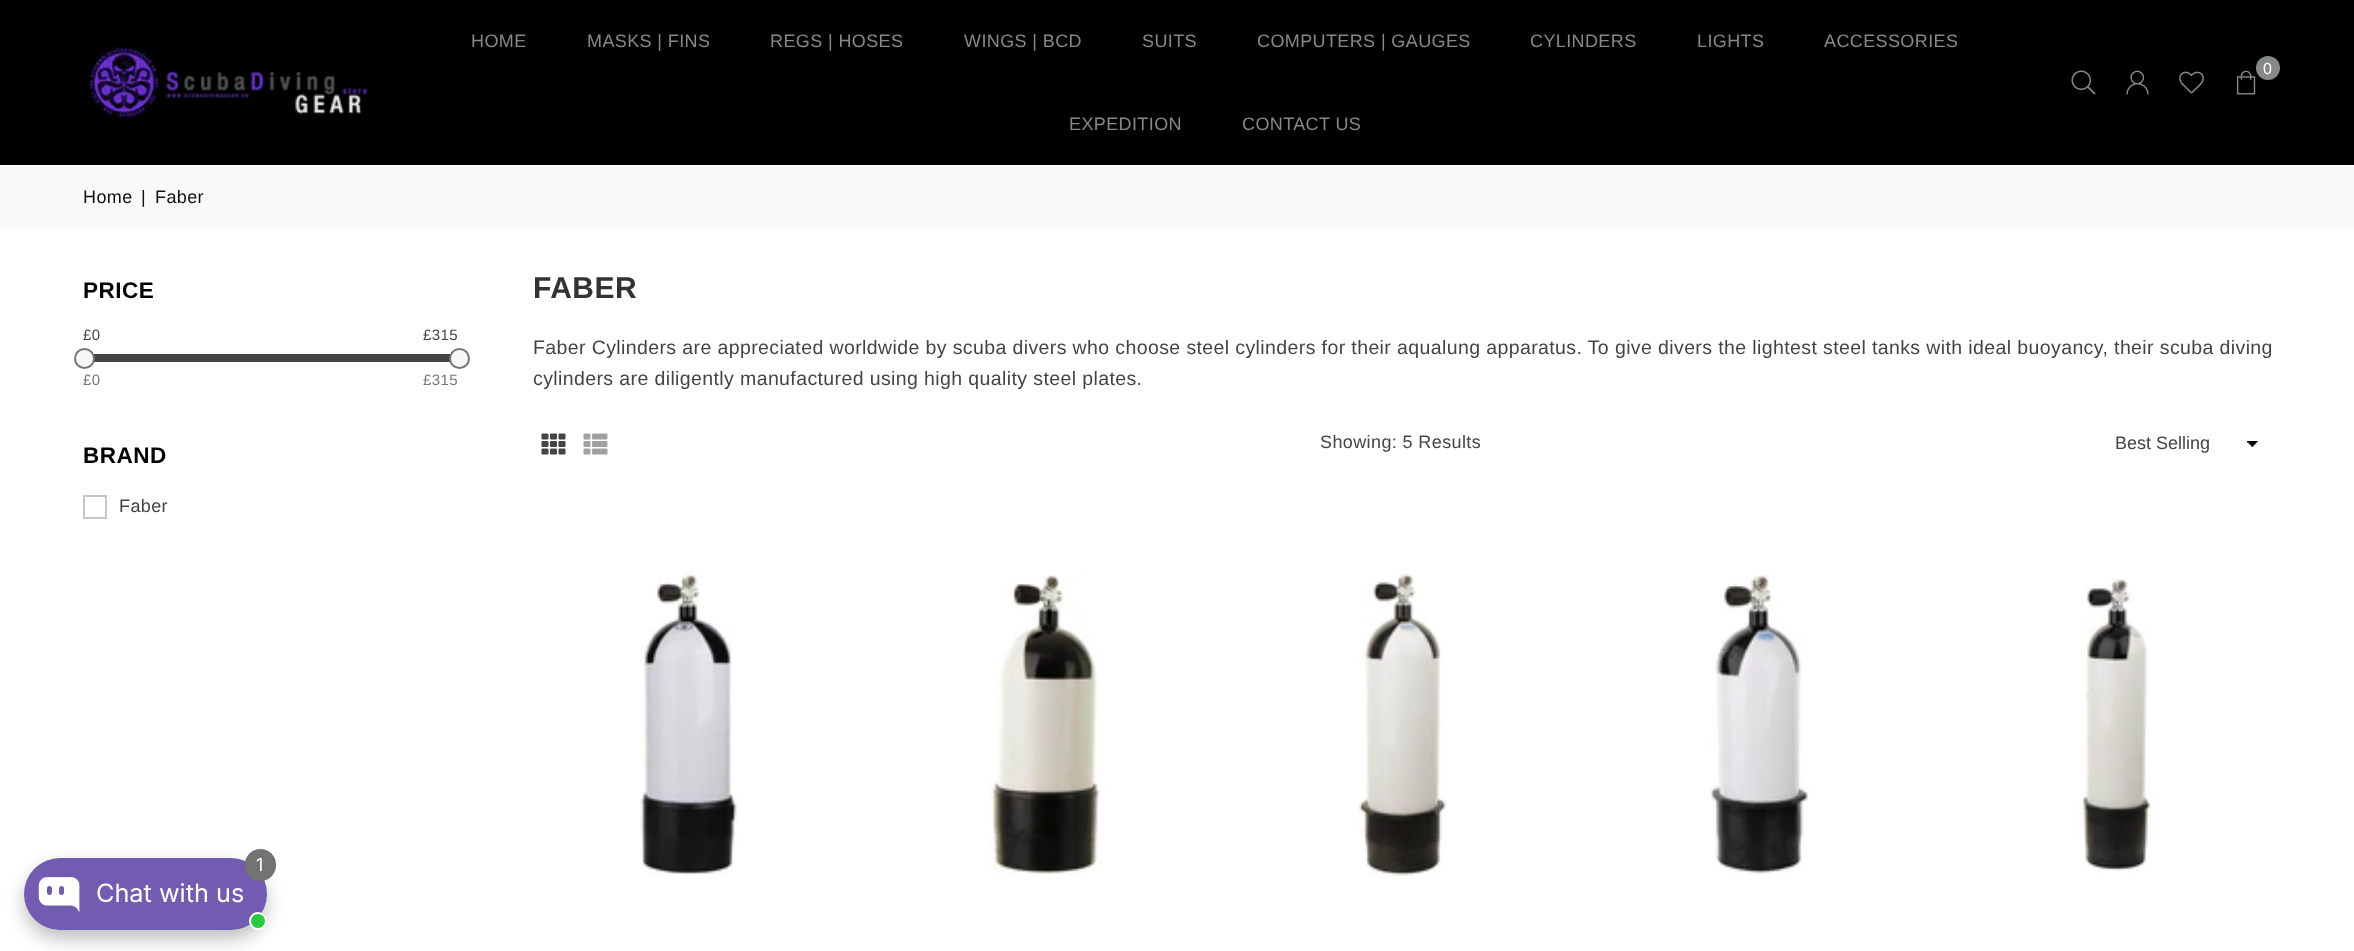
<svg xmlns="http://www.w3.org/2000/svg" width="2354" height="951">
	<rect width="100%" height="100%" fill="#FFFFFF" />
	<rect x="0" y="0" width="2354" height="165" fill="#000000" />
	<image x="87" y="46" width="281" height="73" href="assets/img1.png" />
	<g font-family="Liberation Sans" font-size="18" letter-spacing="0.39" fill="#858989">
		<text x="471" y="47">HOME</text>
		<text x="587" y="47">MASKS | FINS</text>
		<text x="770" y="47">REGS | HOSES</text>
		<text x="964" y="47">WINGS | BCD</text>
		<text x="1142" y="47">SUITS</text>
		<text x="1257" y="47">COMPUTERS | GAUGES</text>
		<text x="1530" y="47">CYLINDERS</text>
		<text x="1697" y="47">LIGHTS</text>
		<text x="1824" y="47">ACCESSORIES</text>
		<text x="1069" y="130">EXPEDITION</text>
		<text x="1242" y="130">CONTACT US</text>
	</g>
	<circle cx="2268" cy="68" r="12" fill="#858989" />
	<text x="2263" y="74" font-family="Liberation Sans" font-size="16" letter-spacing="0.39" fill="#FFFFFF">0</text>
	<image x="2236" y="70" width="20" height="25" href="assets/img2.png" />
	<image x="2071" y="70" width="25" height="25" href="assets/img3.png" />
	<image x="2126" y="70" width="23" height="25" href="assets/img4.png" />
	<image x="2179" y="71" width="25" height="23" href="assets/img5.png" />
	<rect x="0" y="167" width="2354" height="61" fill="#F9F9F9" />
	<g font-family="Liberation Sans" font-size="18" letter-spacing="0.39" fill="#111111">
		<text x="83" y="203">Home</text>
		<text x="141" y="203">|</text>
		<text x="155" y="203">Faber</text>
	</g>
	<text x="83" y="298" font-family="Liberation Sans" font-size="22.5" font-weight="700" letter-spacing="0.5" fill="#000000">PRICE</text>
	<g font-family="Liberation Sans" font-size="15" letter-spacing="0.39" fill="#444444">
		<text x="83" y="340">£0</text>
		<text x="423" y="340">£315</text>
	</g>
	<rect x="94" y="354" width="364" height="8" fill="#444444" />
	<circle cx="84.5" cy="358.5" r="9.5" fill="#F7F7F7" stroke="#777777" stroke-width="2" />
	<circle cx="459.5" cy="358.5" r="9.5" fill="#F7F7F7" stroke="#777777" stroke-width="2" />
	<g font-family="Liberation Sans" font-size="15" letter-spacing="0.39" fill="#777777">
		<text x="83" y="385">£0</text>
		<text x="423" y="385">£315</text>
	</g>
	<text x="83" y="463" font-family="Liberation Sans" font-size="22.5" font-weight="700" letter-spacing="0.5" fill="#000000">BRAND</text>
	<rect x="84" y="496" width="22" height="22" fill="none" stroke="#C7C7C7" stroke-width="2" />
	<text x="119" y="512" font-family="Liberation Sans" font-size="18" letter-spacing="0.39" fill="#444444">Faber</text>
	<text x="533" y="298" font-family="Liberation Sans" font-size="30" font-weight="700" letter-spacing="0.5" fill="#333333">FABER</text>
	<g font-family="Liberation Sans" font-size="19.5" letter-spacing="0.39" fill="#444444">
		<text x="533" y="354">Faber Cylinders are appreciated worldwide by scuba divers who choose steel cylinders for their aqualung apparatus. To give divers the lightest steel tanks with ideal buoyancy, their scuba diving</text>
		<text x="533" y="385">cylinders are diligently manufactured using high quality steel plates.</text>
	</g>
	<image x="541" y="433" width="25" height="22" href="assets/img6.png" />
	<image x="583" y="433" width="25" height="22" href="assets/img7.png" />
	<text x="1320" y="448" font-family="Liberation Sans" font-size="18" letter-spacing="0.39" fill="#444444">Showing: 5 Results</text>
	<image x="2247" y="441" width="11" height="6" href="assets/img8.png" />
	<text x="2115" y="449" font-family="Liberation Sans" font-size="18" fill="#444444">Best Selling</text>
	<image x="640" y="570" width="97" height="305" href="assets/img9.png" />
	<image x="989" y="574" width="116" height="302" href="assets/img10.png" />
	<image x="1357" y="573" width="90" height="305" href="assets/img11.png" />
	<image x="1710" y="570" width="100" height="304" href="assets/img12.png" />
	<image x="2079" y="578" width="72" height="295" href="assets/img13.png" />
	<rect x="24" y="867" width="243" height="72" rx="36" fill="#000000" fill-opacity="0.25" filter="blur(9px)" />
	<rect x="24" y="858" width="243" height="72" rx="36" fill="#725CB1" />
	<rect x="245" y="849" width="31" height="32" rx="15.5" fill="#737373" />
	<text x="256" y="871" font-family="Inter" font-size="18" letter-spacing="0.39" fill="#FFFFFF">1</text>
	<image x="38" y="877" width="42" height="35" href="assets/img14.png" />
	<text x="96" y="902" font-family="Inter" font-size="25.25" fill="#FFFFFF">Chat with us</text>
	<circle cx="258" cy="921" r="8" fill="#27CA40" stroke="#FFFFFF" stroke-width="2" />
</svg>
